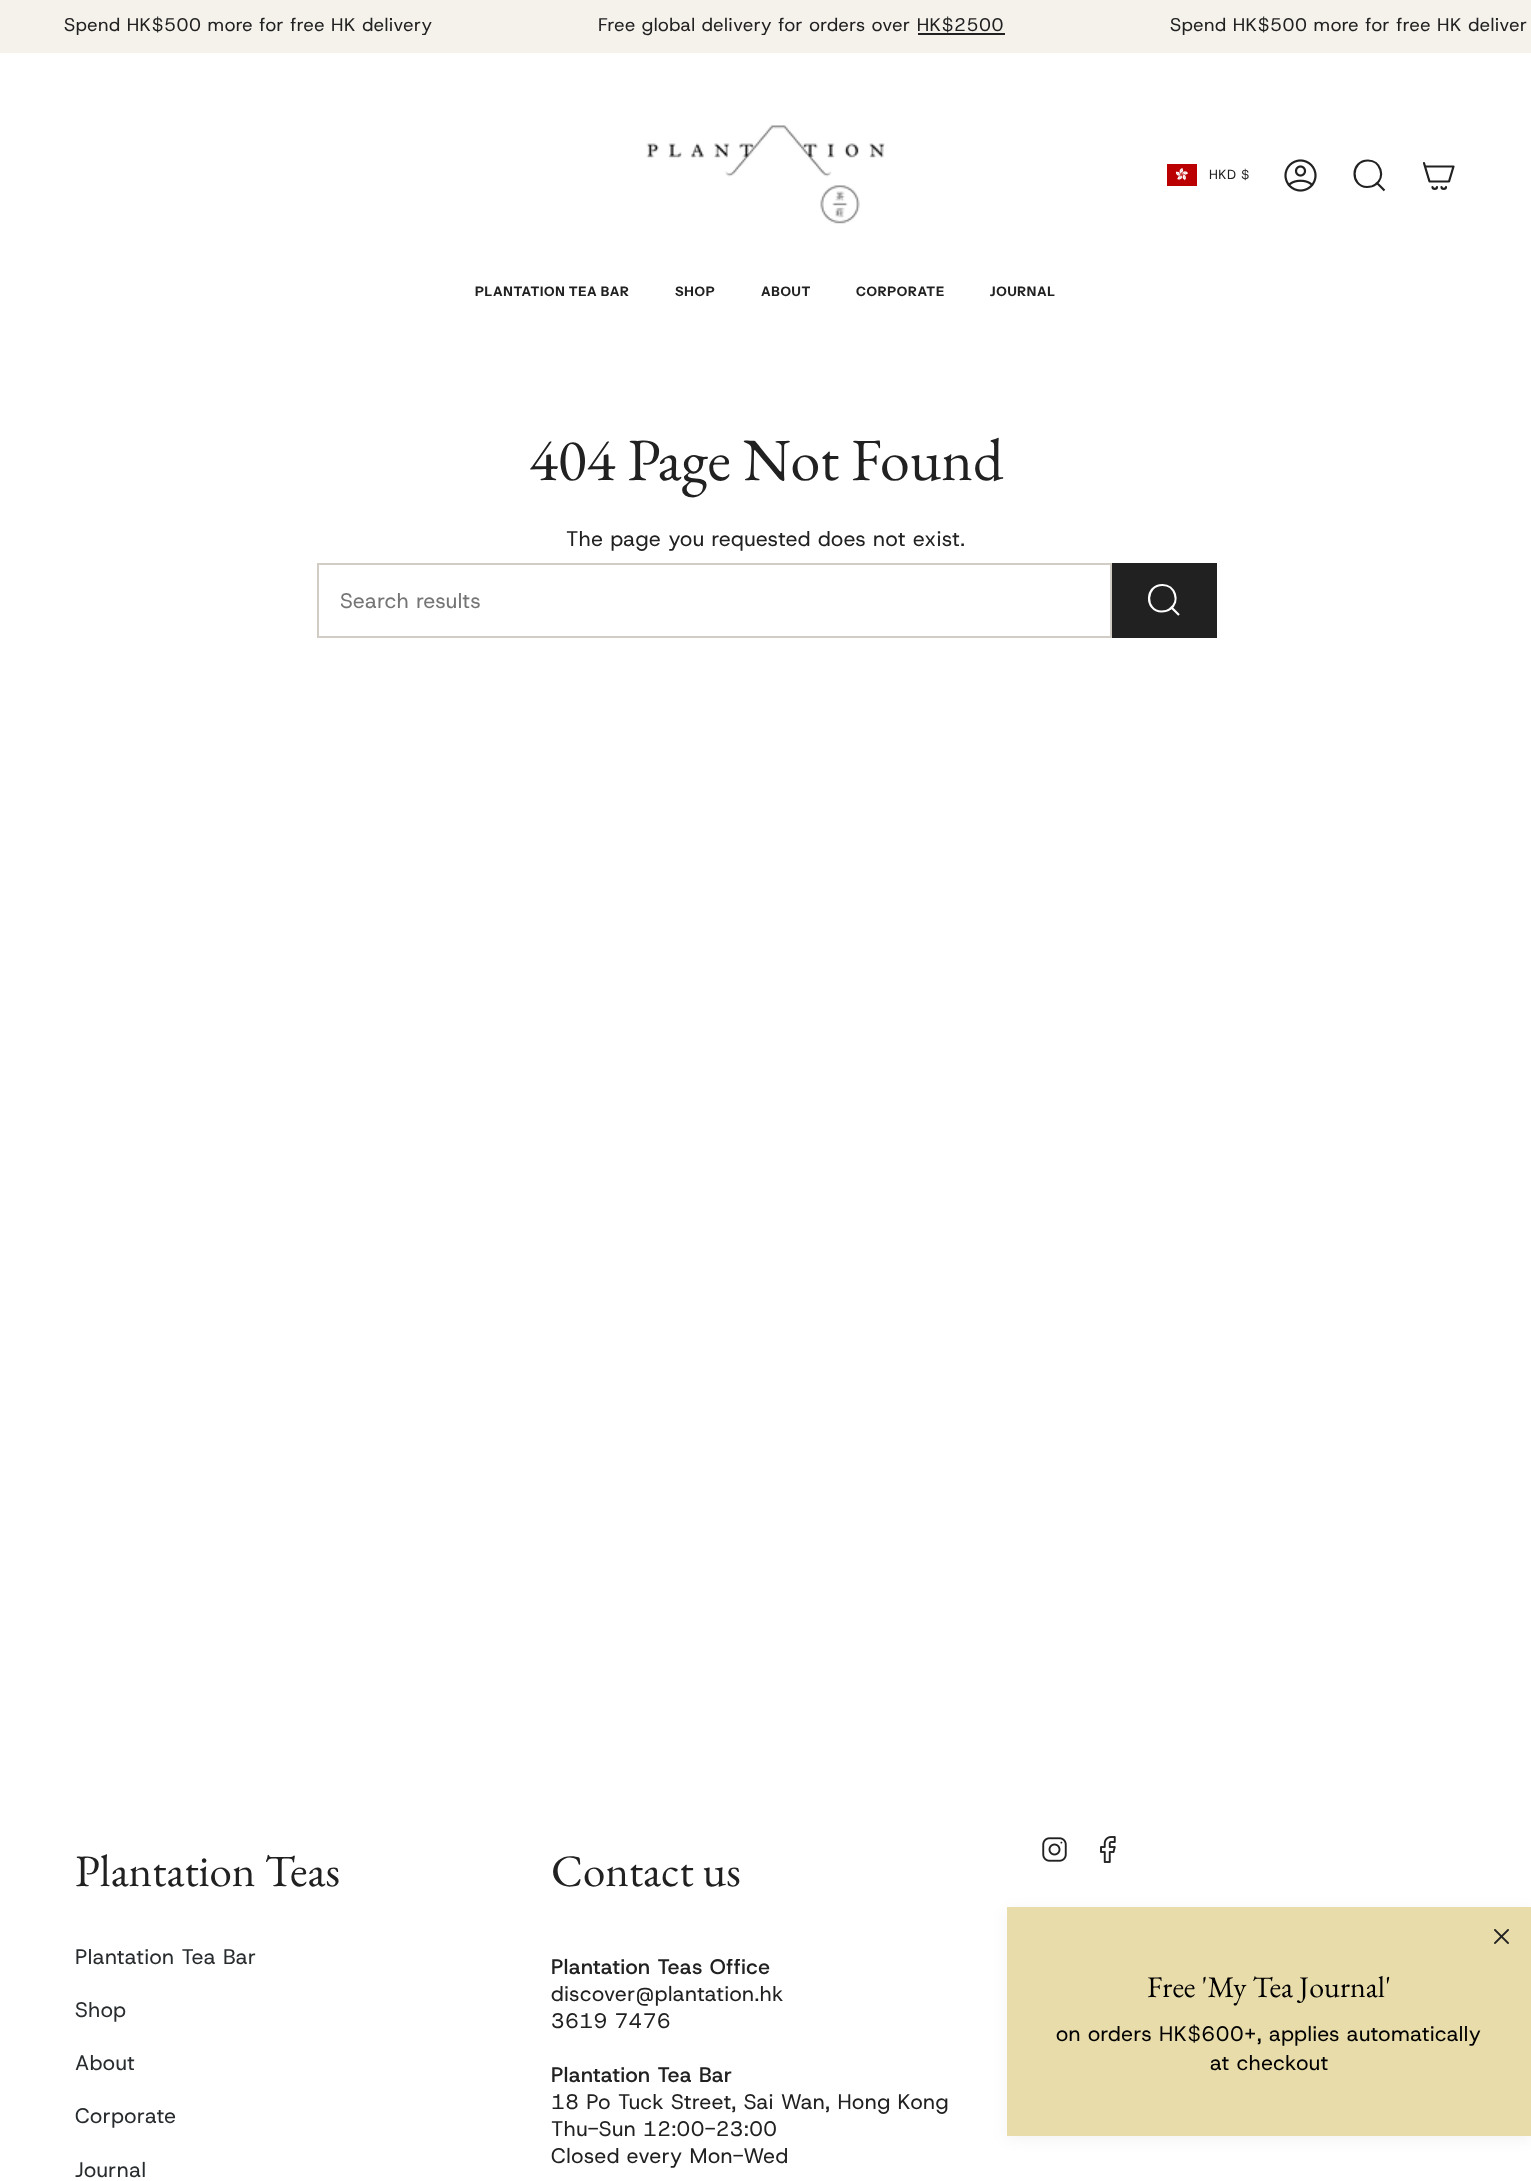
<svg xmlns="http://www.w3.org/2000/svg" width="1531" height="2181">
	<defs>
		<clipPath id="clip1"><rect x="341" y="587" width="747" height="27" /></clipPath>
	</defs>
	<rect width="100%" height="100%" fill="#FFFFFF" />
	<rect x="0" y="0" width="1531" height="53" fill="#F5F2EC" />
	<g font-family="Host Grotesk" font-size="18.4" letter-spacing="0.5" fill="#212121">
		<text x="64" y="31">Spend HK$500 more for free HK delivery</text>
		<text x="598" y="31">Free global delivery for orders over HK$2500</text>
	</g>
	<rect x="918" y="33" width="87" height="2" fill="#212121" />
	<text x="1170" y="31" font-family="Host Grotesk" font-size="18.4" letter-spacing="0.5" fill="#212121">Spend HK$500 more for free HK deliver</text>
	<image x="646" y="125" width="239" height="99" href="assets/img1.png" />
	<image x="1167" y="164" width="30" height="22" href="assets/img2.png" />
	<text x="1209" y="179" font-family="Host Grotesk" font-size="13.1" letter-spacing="0.5" fill="#212121">HKD $</text>
	<image x="1284" y="159" width="33" height="33" href="assets/img3.png" />
	<path d="M1368 160.5C1380.5 160.5 1386 177 1375.5 184.5C1373 186.5 1370 187 1367 187C1350 186.5 1350.5 160.5 1368 160.5ZM1377 183L1384.5 190.5" fill="none" stroke="#212121" stroke-width="2.2" />
	<path d="M1425 166.5H1453.5L1449 181.5H1429.5ZM1425 166.5L1424 163M1437 187C1437 189.5 1432.5 189.5 1432.5 187M1446 187C1446 189.5 1441.5 189.5 1441.5 187" fill="none" stroke="#212121" stroke-width="2.2" stroke-linecap="round" stroke-linejoin="round" />
	<g font-family="Instrument Sans" font-size="13.1" font-weight="700" letter-spacing="0.75" fill="#212121">
		<text x="475" y="296">PLANTATION TEA BAR</text>
		<text x="675" y="296">SHOP</text>
		<text x="761" y="296">ABOUT</text>
		<text x="856" y="296">CORPORATE</text>
		<text x="990" y="296">JOURNAL</text>
	</g>
	<text x="529" y="480" font-family="EB Garamond" font-size="60" fill="#212121">404 Page Not Found</text>
	<text x="566" y="546" font-family="Host Grotesk" font-size="21" letter-spacing="0.5" fill="#212121">The page you requested does not exist.</text>
	<rect x="318" y="564" width="793" height="73" fill="none" stroke="#D1CDC4" stroke-width="2" />
	<g clip-path="url(#clip1)">
		<text x="340" y="608" font-family="Host Grotesk" font-size="21" letter-spacing="0.5" fill="#757575">Search results</text>
	</g>
	<rect x="1112" y="563" width="105" height="75" fill="#212121" />
	<path d="M1162.5 585C1175 585 1180.5 601.5 1170 609C1167.5 611 1164.5 611.5 1161.5 611.5C1144.5 611 1145 585 1162.5 585ZM1171.5 607.5L1179 615" fill="none" stroke="#FFFFFF" stroke-width="2.2" />
	<rect x="1007" y="1910" width="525" height="229" fill="#000000" fill-opacity="0.05" filter="blur(7.5px)" />
	<rect x="1007" y="1907" width="524" height="229" fill="#E9DCAB" />
	<image x="1494" y="1929" width="15" height="15" href="assets/img4.png" />
	<text x="1147" y="1997" font-family="EB Garamond" font-size="30" fill="#000000">Free 'My Tea Journal'</text>
	<g font-family="Host Grotesk" font-size="21" letter-spacing="0.5" fill="#000000">
		<text x="1056" y="2041">on orders HK$600+, applies automatically</text>
		<text x="1210" y="2070">at checkout</text>
	</g>
	<image x="1042" y="1837" width="25" height="25" href="assets/img5.png" />
	<image x="1100" y="1836" width="16" height="27" href="assets/img6.png" />
	<text x="75" y="1886" font-family="EB Garamond" font-size="45" fill="#212121">Plantation Teas</text>
	<g font-family="Host Grotesk" font-size="21" letter-spacing="0.5" fill="#282C2E">
		<text x="75" y="1964">Plantation Tea Bar</text>
		<text x="75" y="2017">Shop</text>
		<text x="75" y="2070">About</text>
		<text x="75" y="2123">Corporate</text>
		<text x="75" y="2177">Journal</text>
	</g>
	<text x="551" y="1886" font-family="EB Garamond" font-size="45" fill="#212121">Contact us</text>
	<text x="551" y="1974" font-family="Host Grotesk" font-size="21" font-weight="500" letter-spacing="0.5" fill="#212121">Plantation Teas Office</text>
	<g font-family="Host Grotesk" font-size="21" letter-spacing="0.5" fill="#212121">
		<text x="551" y="2001">discover@plantation.hk</text>
		<text x="551" y="2028">3619 7476</text>
	</g>
	<text x="551" y="2082" font-family="Host Grotesk" font-size="21" font-weight="500" letter-spacing="0.5" fill="#212121">Plantation Tea Bar</text>
	<g font-family="Host Grotesk" font-size="21" letter-spacing="0.5" fill="#212121">
		<text x="551" y="2109">18 Po Tuck Street, Sai Wan, Hong Kong</text>
		<text x="551" y="2136">Thu-Sun 12:00-23:00</text>
		<text x="551" y="2163">Closed every Mon-Wed</text>
	</g>
</svg>
